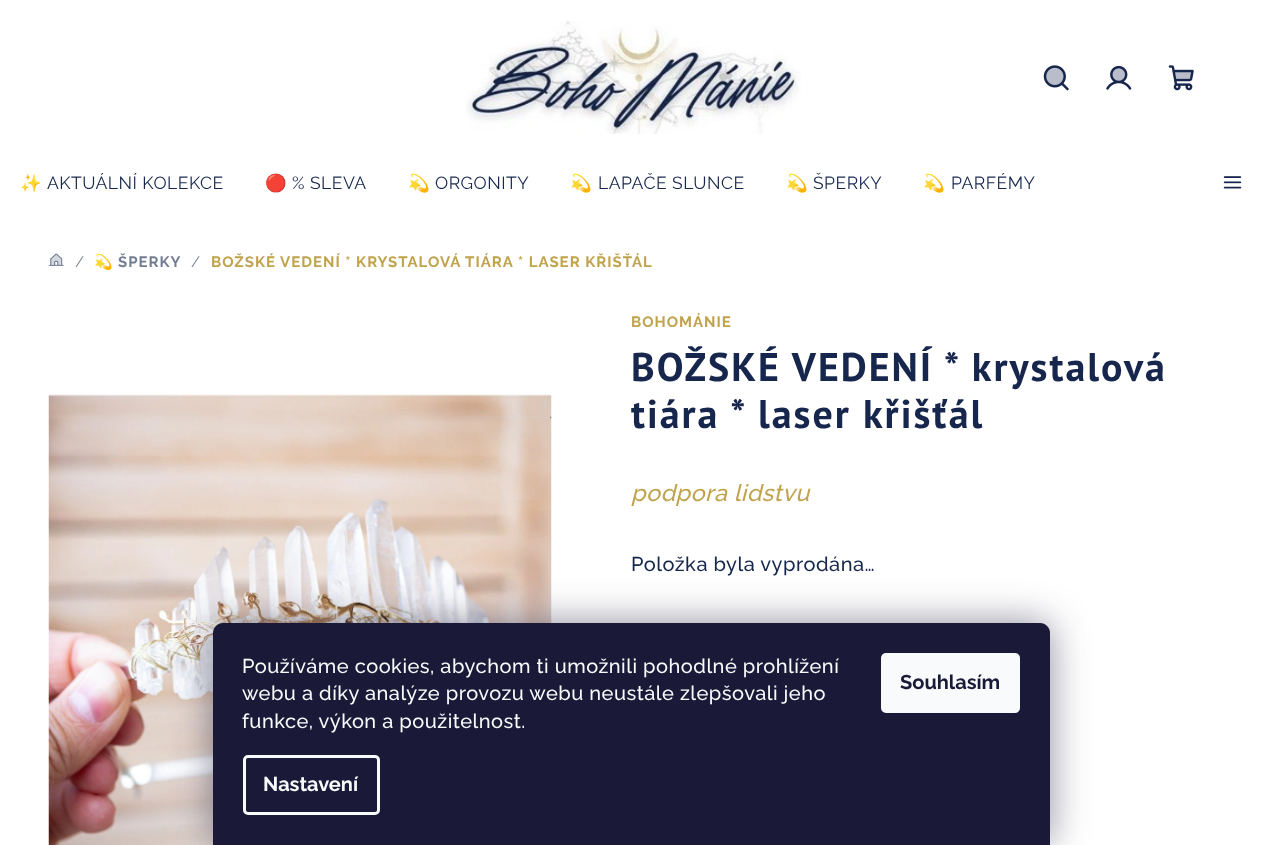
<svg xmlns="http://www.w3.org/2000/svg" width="1279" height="845">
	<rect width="100%" height="100%" fill="#FFFFFF" />
	<image x="465" y="21" width="336" height="113" href="assets/img1.png" />
	<image x="1043" y="65" width="26" height="26" href="assets/img2.png" />
	<path d="M1055 86.5C1068 86.5 1068 66.5 1055 66.5C1042 66.5 1042 86.5 1055 86.5Z" fill="#16264C" fill-opacity="0.3" />
	<image x="1106" y="65" width="26" height="25" href="assets/img3.png" />
	<image x="1112" y="68" width="13" height="13" href="assets/img4.png" />
	<image x="1168" y="65" width="26" height="26" href="assets/img5.png" />
	<rect x="1175" y="72" width="16" height="7" fill="#16264C" fill-opacity="0.3" />
	<text x="20" y="189" font-family="Noto Color Emoji" font-size="17.5" letter-spacing="0.5" fill="#16264C">✨</text>
	<text x="47" y="189" font-family="Raleway" font-size="17.5" letter-spacing="0.5" fill="#16264C">AKTUÁLNÍ KOLEKCE</text>
	<text x="265" y="189" font-family="Noto Color Emoji" font-size="17.5" letter-spacing="0.5" fill="#16264C">🔴</text>
	<text x="292" y="189" font-family="Raleway" font-size="17.5" letter-spacing="0.5" fill="#16264C">% SLEVA</text>
	<text x="408" y="189" font-family="Noto Color Emoji" font-size="17.5" letter-spacing="0.5" fill="#16264C">💫</text>
	<text x="435" y="189" font-family="Raleway" font-size="17.5" letter-spacing="0.5" fill="#16264C">ORGONITY</text>
	<text x="570" y="189" font-family="Noto Color Emoji" font-size="17.5" letter-spacing="0.5" fill="#16264C">💫</text>
	<text x="598" y="189" font-family="Raleway" font-size="17.5" letter-spacing="0.5" fill="#16264C">LAPAČE SLUNCE</text>
	<text x="786" y="189" font-family="Noto Color Emoji" font-size="17.5" letter-spacing="0.5" fill="#16264C">💫</text>
	<text x="813" y="189" font-family="Raleway" font-size="17.5" letter-spacing="0.5" fill="#16264C">ŠPERKY</text>
	<text x="923" y="189" font-family="Noto Color Emoji" font-size="17.5" letter-spacing="0.5" fill="#16264C">💫</text>
	<text x="951" y="189" font-family="Raleway" font-size="17.5" letter-spacing="0.5" fill="#16264C">PARFÉMY</text>
	<image x="1223" y="176" width="19" height="13" href="assets/img6.png" />
	<image x="48" y="253" width="16" height="13" href="assets/img7.png" />
	<image x="50" y="254" width="12" height="12" href="assets/img8.png" />
	<text x="75" y="267" font-family="Raleway" font-size="15" letter-spacing="1" fill="#737D93">/</text>
	<text x="94" y="267" font-family="Noto Color Emoji" font-size="15" font-weight="700" letter-spacing="1" fill="#737D93">💫</text>
	<text x="118" y="267" font-family="Raleway" font-size="15" font-weight="700" letter-spacing="1" fill="#737D93">ŠPERKY</text>
	<text x="191" y="267" font-family="Raleway" font-size="15" letter-spacing="1" fill="#737D93">/</text>
	<text x="211" y="267" font-family="Raleway" font-size="15" font-weight="700" letter-spacing="1" fill="#C0A34D">BOŽSKÉ VEDENÍ * KRYSTALOVÁ TIÁRA * LASER KŘIŠŤÁL</text>
	<image x="48" y="394" width="504" height="451" href="assets/img9.png" />
	<text x="631" y="327" font-family="Raleway" font-size="15" font-weight="700" letter-spacing="1" fill="#C0A34D">BOHOMÁNIE</text>
	<g font-family="PT Sans" font-size="40" font-weight="700" letter-spacing="2" fill="#16264C">
		<text x="631" y="381">BOŽSKÉ VEDENÍ * krystalová</text>
		<text x="631" y="428">tiára * laser křišťál</text>
	</g>
	<text x="631" y="501" font-family="Raleway" font-size="23.25" font-weight="500" font-style="italic" letter-spacing="0.5" fill="#C0A34D">podpora lidstvu</text>
	<text x="631" y="571" font-family="Raleway" font-size="20" font-weight="500" letter-spacing="0.5" fill="#16264C">Položka byla vyprodána…</text>
	<rect x="213" y="623" width="837" height="222" rx="10" fill="#1B1939" fill-opacity="0.5" filter="blur(19px)" />
	<path d="M223 623H1040C1045.5 623 1050 627.5 1050 633V845H213V633C213 627.5 217.5 623 223 623Z" fill="#1A1937" />
	<g font-family="Raleway" font-size="20" font-weight="500" letter-spacing="0.5" fill="#F8FAFB">
		<text x="242" y="673">Používáme cookies, abychom ti umožnili pohodlné prohlížení</text>
		<text x="242" y="700">webu a díky analýze provozu webu neustále zlepšovali jeho</text>
		<text x="242" y="728">funkce, výkon a použitelnost.</text>
	</g>
	<rect x="244.5" y="756.5" width="134" height="57" rx="3.5" fill="none" stroke="#F8FAFB" stroke-width="3" />
	<text x="263" y="791" font-family="Raleway" font-size="20" font-weight="700" fill="#F8FAFB">Nastavení</text>
	<rect x="881" y="653" width="139" height="60" rx="5" fill="#F8FAFB" />
	<text x="900" y="689" font-family="Raleway" font-size="20" font-weight="700" fill="#1A1937">Souhlasím</text>
</svg>
